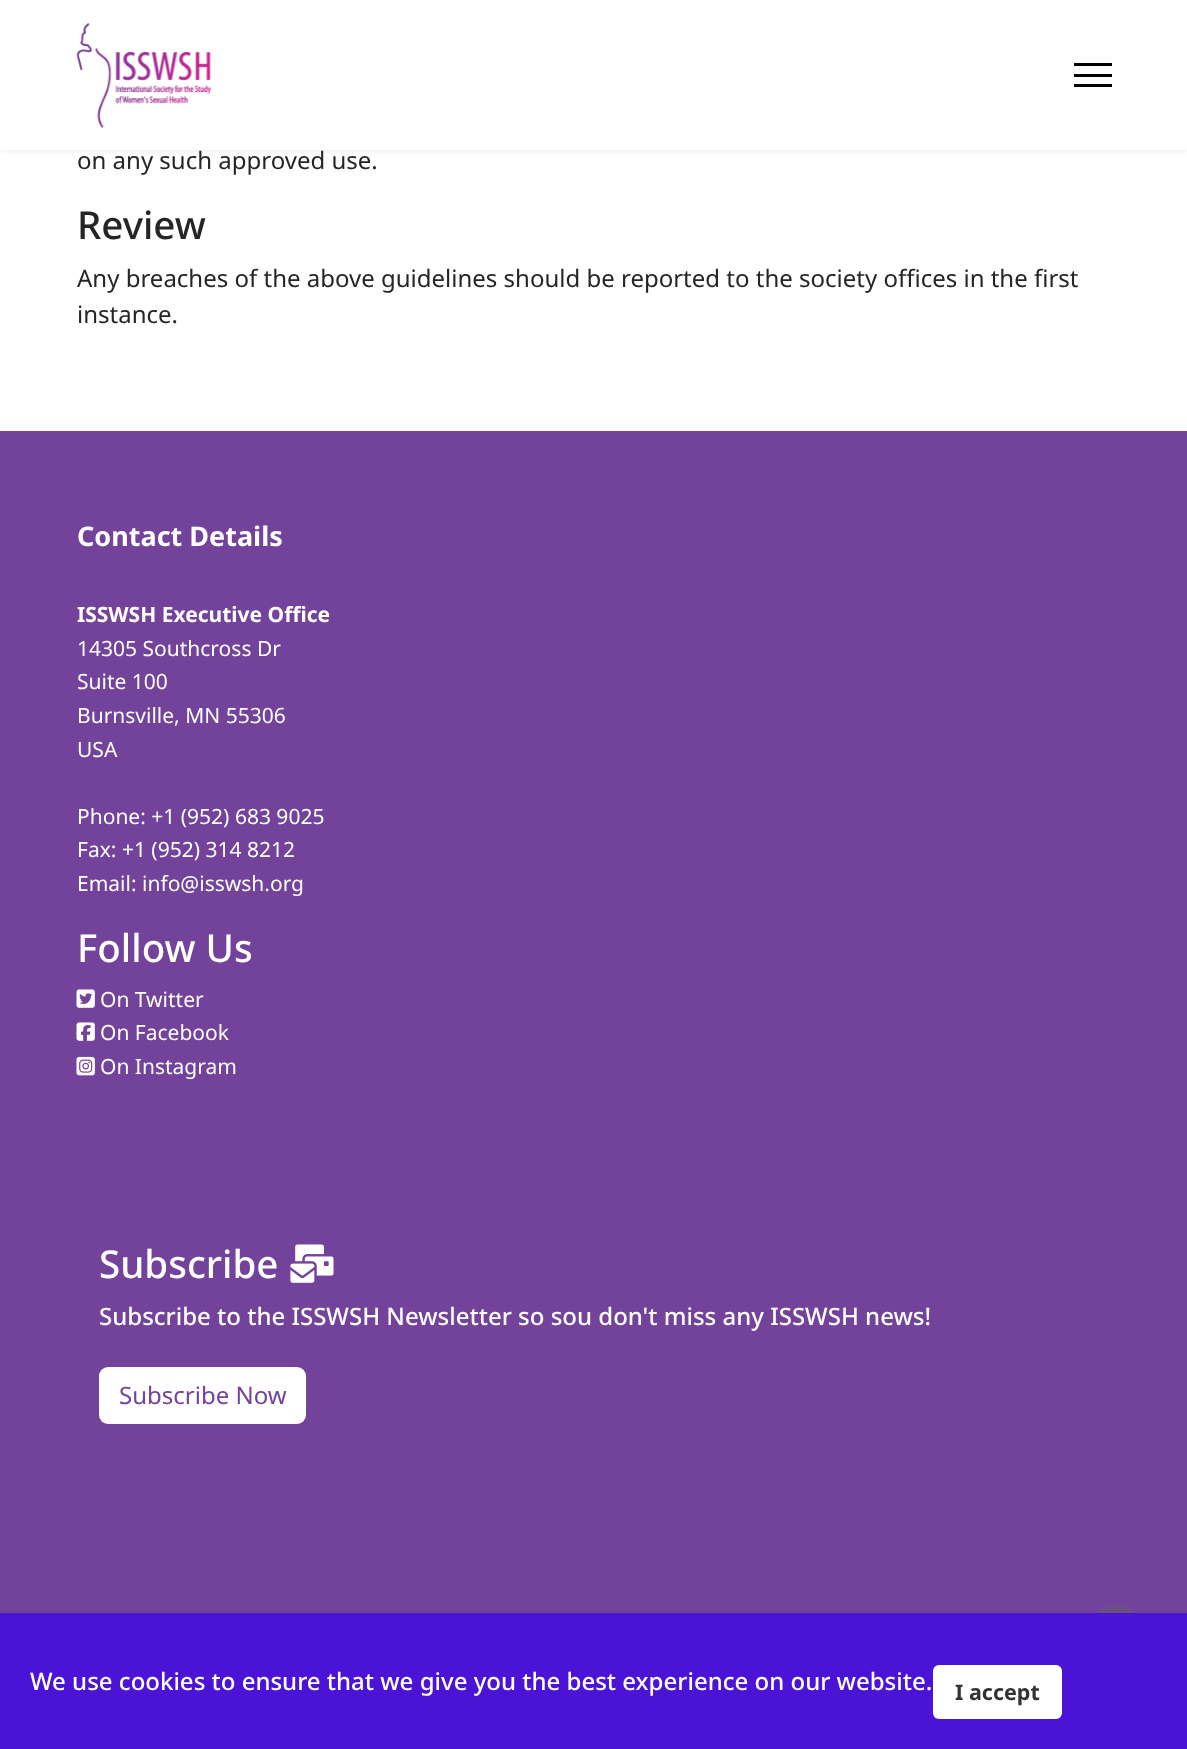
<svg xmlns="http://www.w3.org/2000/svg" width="1187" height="1749">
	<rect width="100%" height="100%" fill="#FFFFFF" />
	<rect x="0" y="0" width="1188" height="150" fill="#000000" fill-opacity="0.1" filter="blur(3px)" />
	<rect x="0" y="0" width="1187" height="150" fill="#FFFFFF" />
	<image x="76" y="23" width="135" height="105" href="assets/img1.png" />
	<rect x="1074" y="63" width="38" height="3" fill="#000000" />
	<rect x="1074" y="74" width="38" height="3" fill="#000000" />
	<rect x="1074" y="84" width="38" height="3" fill="#000000" />
	<text x="77" y="169" font-family="Noto Sans" font-size="24" fill="#252525">on any such approved use.</text>
	<text x="77" y="239" font-family="Noto Sans" font-size="38.5" font-weight="500" fill="#252525">Review</text>
	<g font-family="Noto Sans" font-size="24" fill="#252525">
		<text x="77" y="287">Any breaches of the above guidelines should be reported to the society offices in the first</text>
		<text x="77" y="323">instance.</text>
	</g>
	<rect x="0" y="431" width="1187" height="1182" fill="#73429A" />
	<text x="77" y="546" font-family="Noto Sans" font-size="27" font-weight="700" fill="#FFFFFF">Contact Details</text>
	<text x="77" y="622" font-family="Noto Sans" font-size="21" font-weight="700" fill="#FFFFFF">ISSWSH Executive Office</text>
	<g font-family="Noto Sans" font-size="21" fill="#FFFFFF">
		<text x="77" y="656">14305 Southcross Dr</text>
		<text x="77" y="689">Suite 100</text>
		<text x="77" y="723">Burnsville, MN 55306</text>
		<text x="77" y="757">USA</text>
		<text x="77" y="824">Phone: +1 (952) 683 9025</text>
		<text x="77" y="857">Fax: +1 (952) 314 8212</text>
		<text x="77" y="891">Email: info@isswsh.org</text>
	</g>
	<text x="77" y="962" font-family="Noto Sans" font-size="38.5" font-weight="500" fill="#FFFFFF">Follow Us</text>
	<image x="76" y="989" width="19" height="19" href="assets/img2.png" />
	<text x="100" y="1007" font-family="Noto Sans" font-size="21" fill="#FFFFFF">On Twitter</text>
	<image x="76" y="1022" width="19" height="19" href="assets/img3.png" />
	<text x="100" y="1040" font-family="Noto Sans" font-size="21" fill="#FFFFFF">On Facebook</text>
	<image x="76" y="1056" width="19" height="20" href="assets/img4.png" />
	<text x="100" y="1074" font-family="Noto Sans" font-size="21" fill="#FFFFFF">On Instagram</text>
	<text x="99" y="1278" font-family="Noto Sans" font-size="38.5" font-weight="500" fill="#FFFFFF">Subscribe</text>
	<image x="290" y="1244" width="44" height="39" href="assets/img5.png" />
	<text x="99" y="1325" font-family="Noto Sans" font-size="24" font-weight="500" fill="#FFFFFF">Subscribe to the ISSWSH Newsletter so sou don't miss any ISSWSH news!</text>
	<rect x="99" y="1367" width="207" height="57" rx="9" fill="#FFFFFF" />
	<text x="119" y="1404" font-family="Noto Sans" font-size="24" fill="#73429A">Subscribe Now</text>
	<circle cx="1116" cy="1632" r="27" fill="#646464" fill-opacity="0.4" />
	<rect x="0" y="1613" width="1187" height="136" fill="#4A13D6" />
	<text x="30" y="1690" font-family="Noto Sans" font-size="24" font-weight="500" fill="#FFFFFF">We use cookies to ensure that we give you the best experience on our website.</text>
	<rect x="933" y="1665" width="129" height="54" rx="6" fill="#FFFFFF" />
	<text x="955" y="1700" font-family="Noto Sans" font-size="21.5" font-weight="700" fill="#333333">I accept</text>
</svg>
